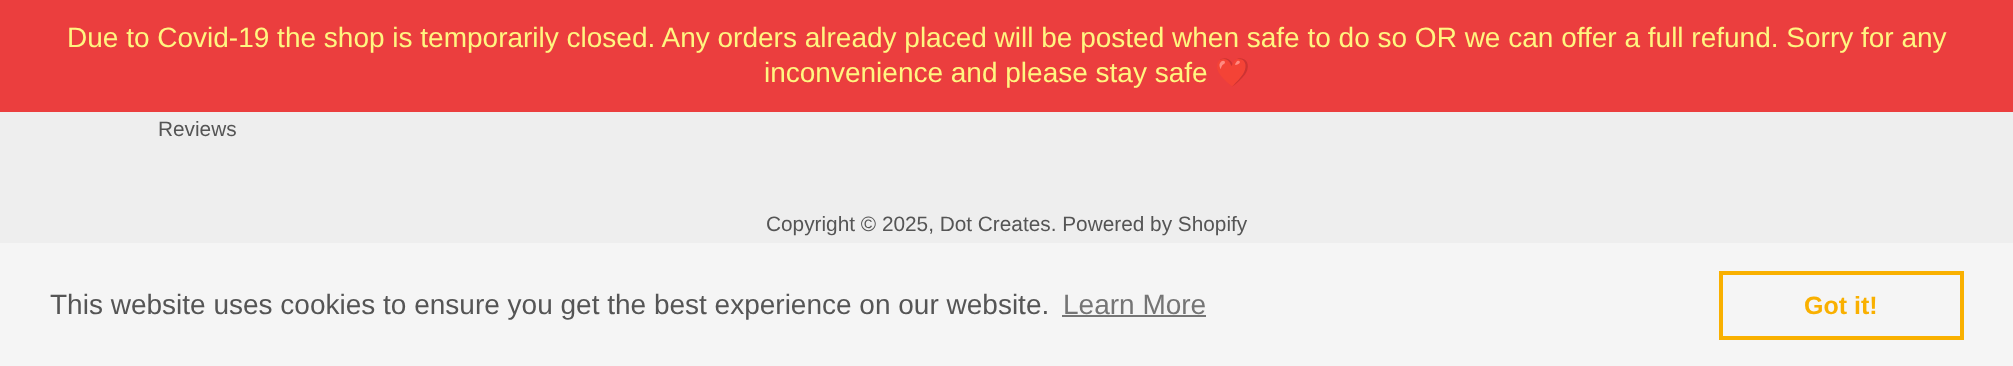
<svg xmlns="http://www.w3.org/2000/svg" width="2013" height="366">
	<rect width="100%" height="100%" fill="#EEEEEE" />
	<rect x="0" y="0" width="2013" height="112" fill="#EB3E3E" />
	<g font-family="Liberation Sans" font-size="28" fill="#FFF681">
		<text x="67" y="47">Due to Covid-19 the shop is temporarily closed. Any orders already placed will be posted when safe to do so OR we can offer a full refund. Sorry for any</text>
		<text x="764" y="82">inconvenience and please stay safe</text>
	</g>
	<text x="1215" y="82" font-family="Noto Color Emoji" font-size="28" fill="#FFF681">❤️</text>
	<g font-family="Liberation Sans" font-size="20.8" fill="#555555">
		<text x="158" y="136">Reviews</text>
		<text x="766" y="231">Copyright © 2025, Dot Creates. Powered by Shopify</text>
	</g>
	<rect x="0" y="243" width="2013" height="123" fill="#F5F5F5" />
	<text x="50" y="314" font-family="Liberation Sans" font-size="28" fill="#555555">This website uses cookies to ensure you get the best experience on our website.</text>
	<text x="1063" y="314" font-family="Liberation Sans" font-size="28" fill="#757575">Learn More</text>
	<rect x="1062" y="315" width="144" height="2" fill="#757575" />
	<rect x="1721" y="273" width="241" height="65" fill="none" stroke="#F9B000" stroke-width="4" />
	<text x="1804" y="314" font-family="Liberation Sans" font-size="25" font-weight="700" fill="#F9B000">Got it!</text>
</svg>
